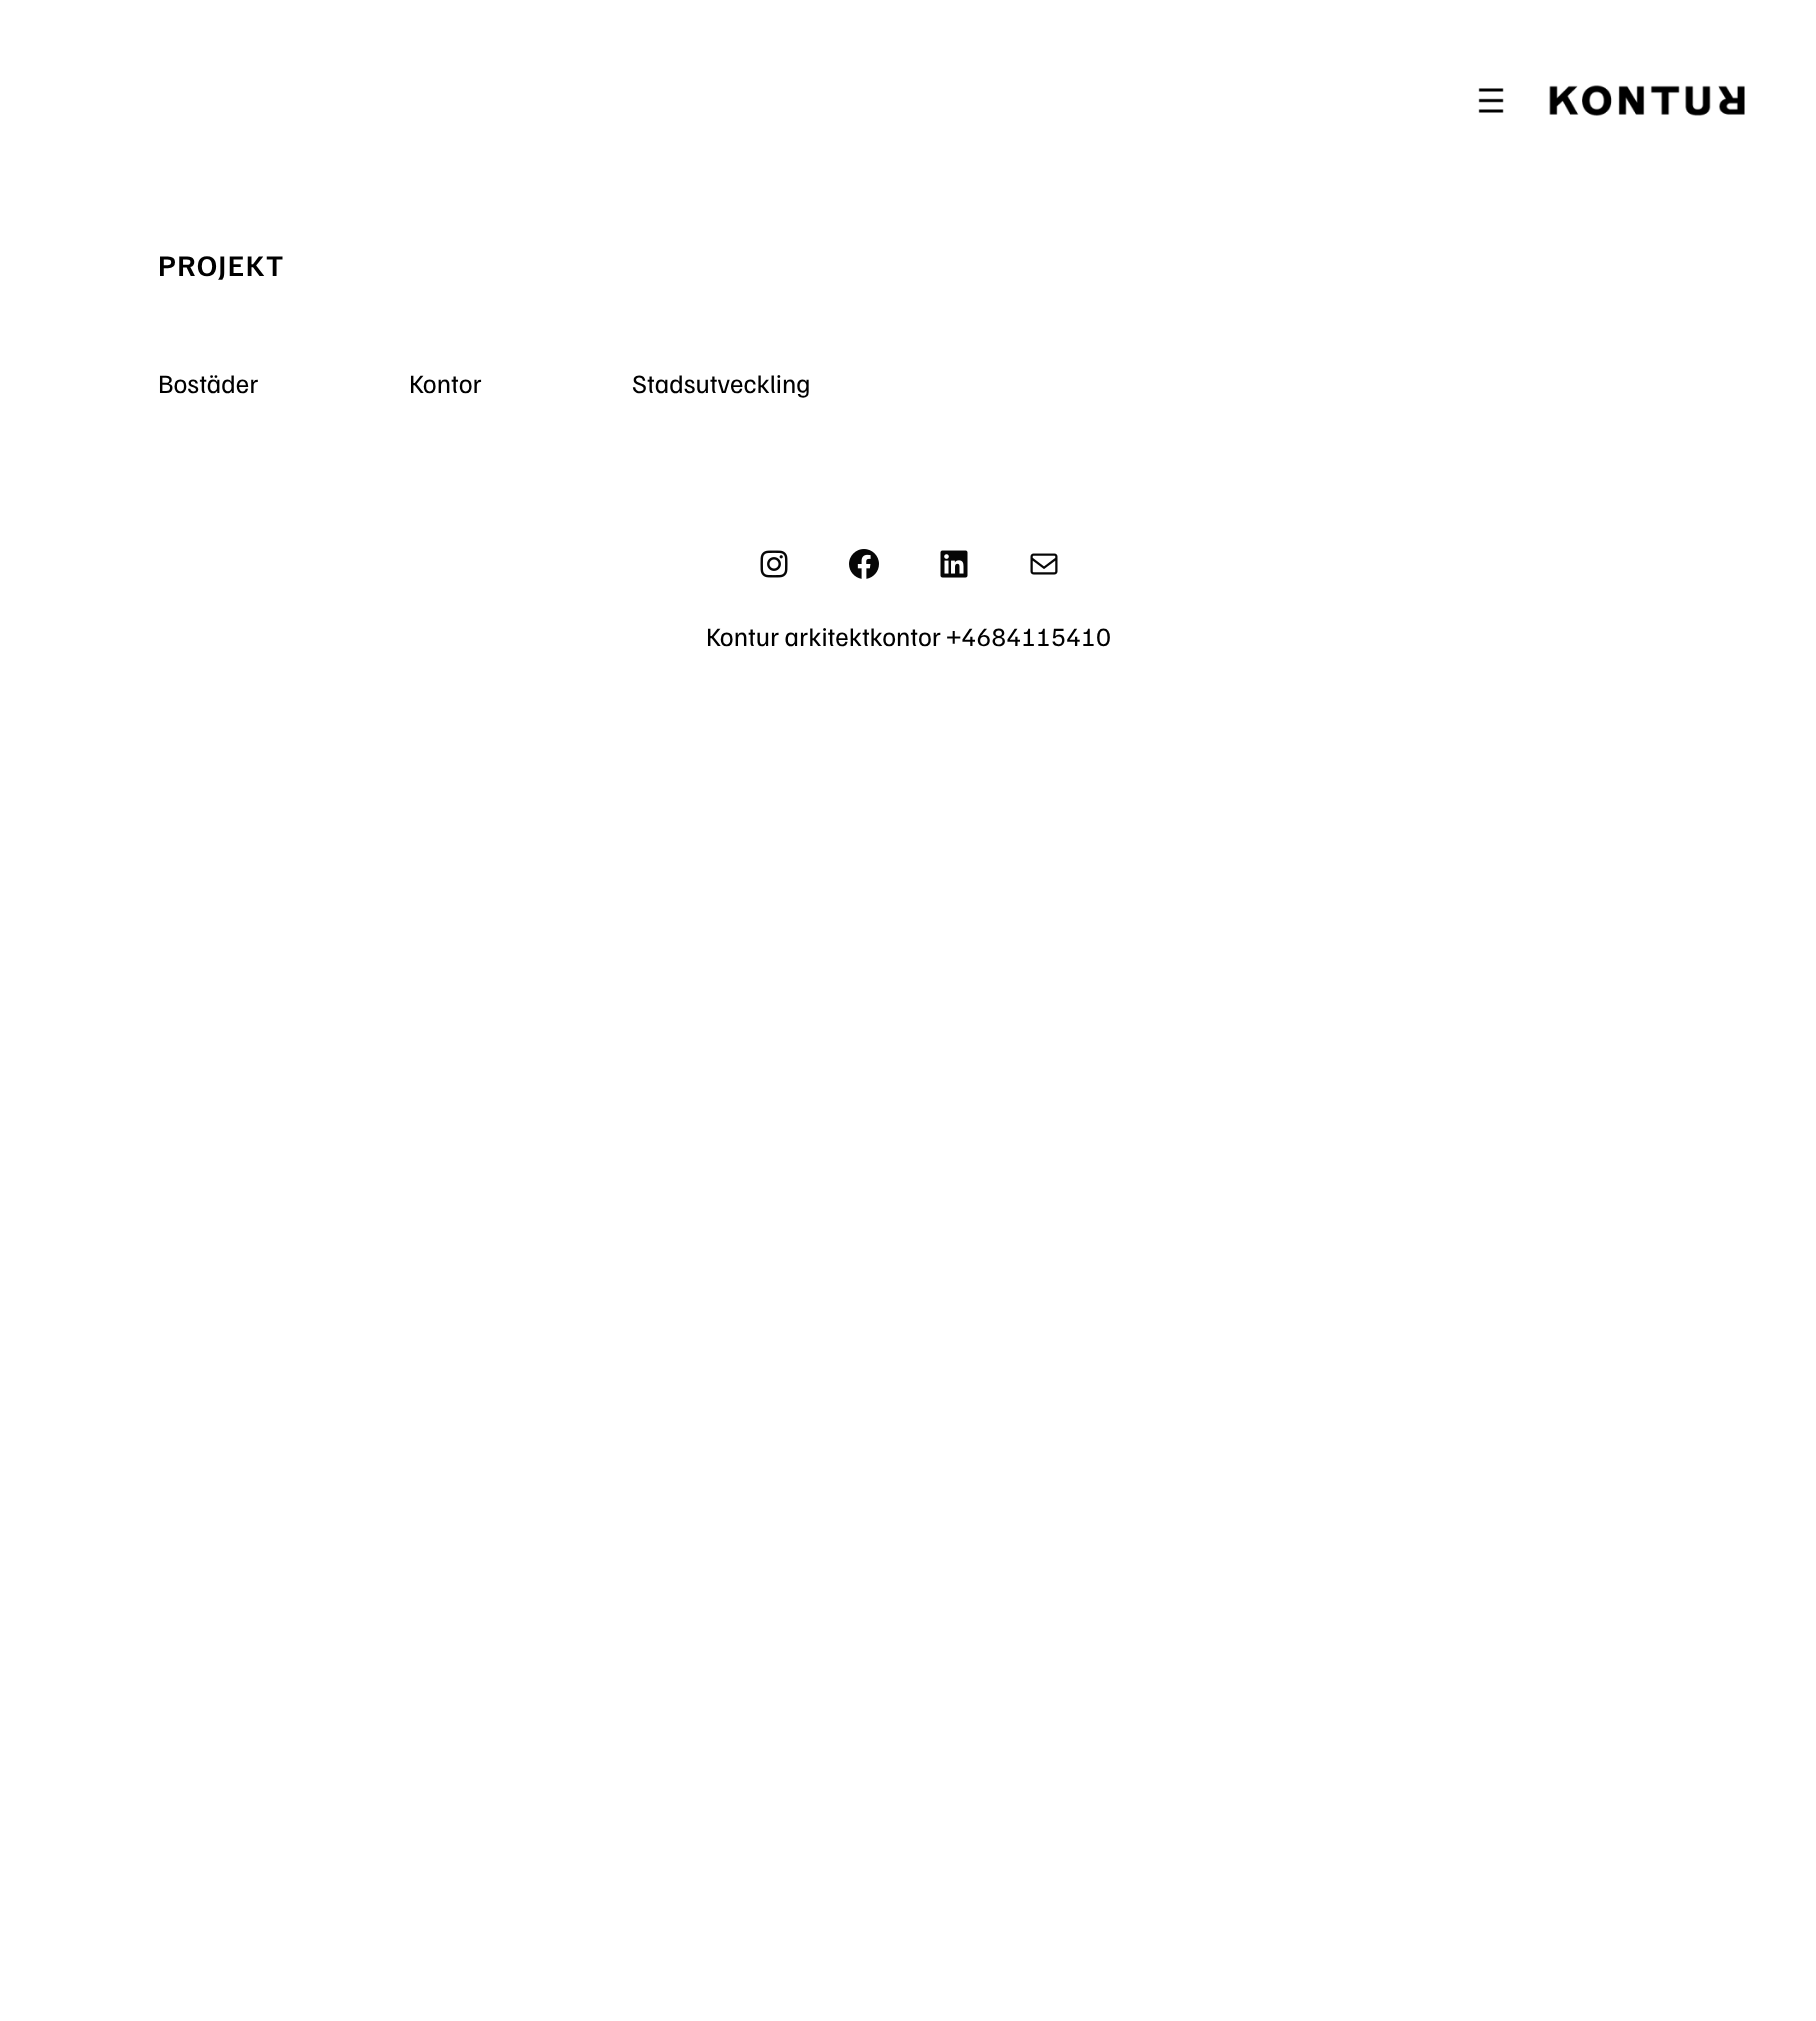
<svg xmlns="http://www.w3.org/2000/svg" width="1816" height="2021">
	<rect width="100%" height="100%" fill="#FFFFFF" />
	<image x="1478" y="88" width="26" height="25" href="assets/img1.png" />
	<image x="1549" y="85" width="196" height="31" href="assets/img2.png" />
	<text x="158" y="276" font-family="Familjen Grotesk" font-size="30" font-weight="600" letter-spacing="1.5" fill="#000000">PROJEKT</text>
	<g font-family="Familjen Grotesk" font-size="26.4" fill="#000000">
		<text x="158" y="393">Bostäder</text>
		<text x="409" y="393">Kontor</text>
		<text x="632" y="393">Stadsutveckling</text>
	</g>
	<image x="760" y="550" width="28" height="28" href="assets/img3.png" />
	<image x="849" y="549" width="30" height="30" href="assets/img4.png" />
	<image x="940" y="550" width="28" height="28" href="assets/img5.png" />
	<image x="1030" y="553" width="28" height="22" href="assets/img6.png" />
	<text x="706" y="646" font-family="Familjen Grotesk" font-size="26.4" fill="#000000">Kontur arkitektkontor +4684115410</text>
</svg>
